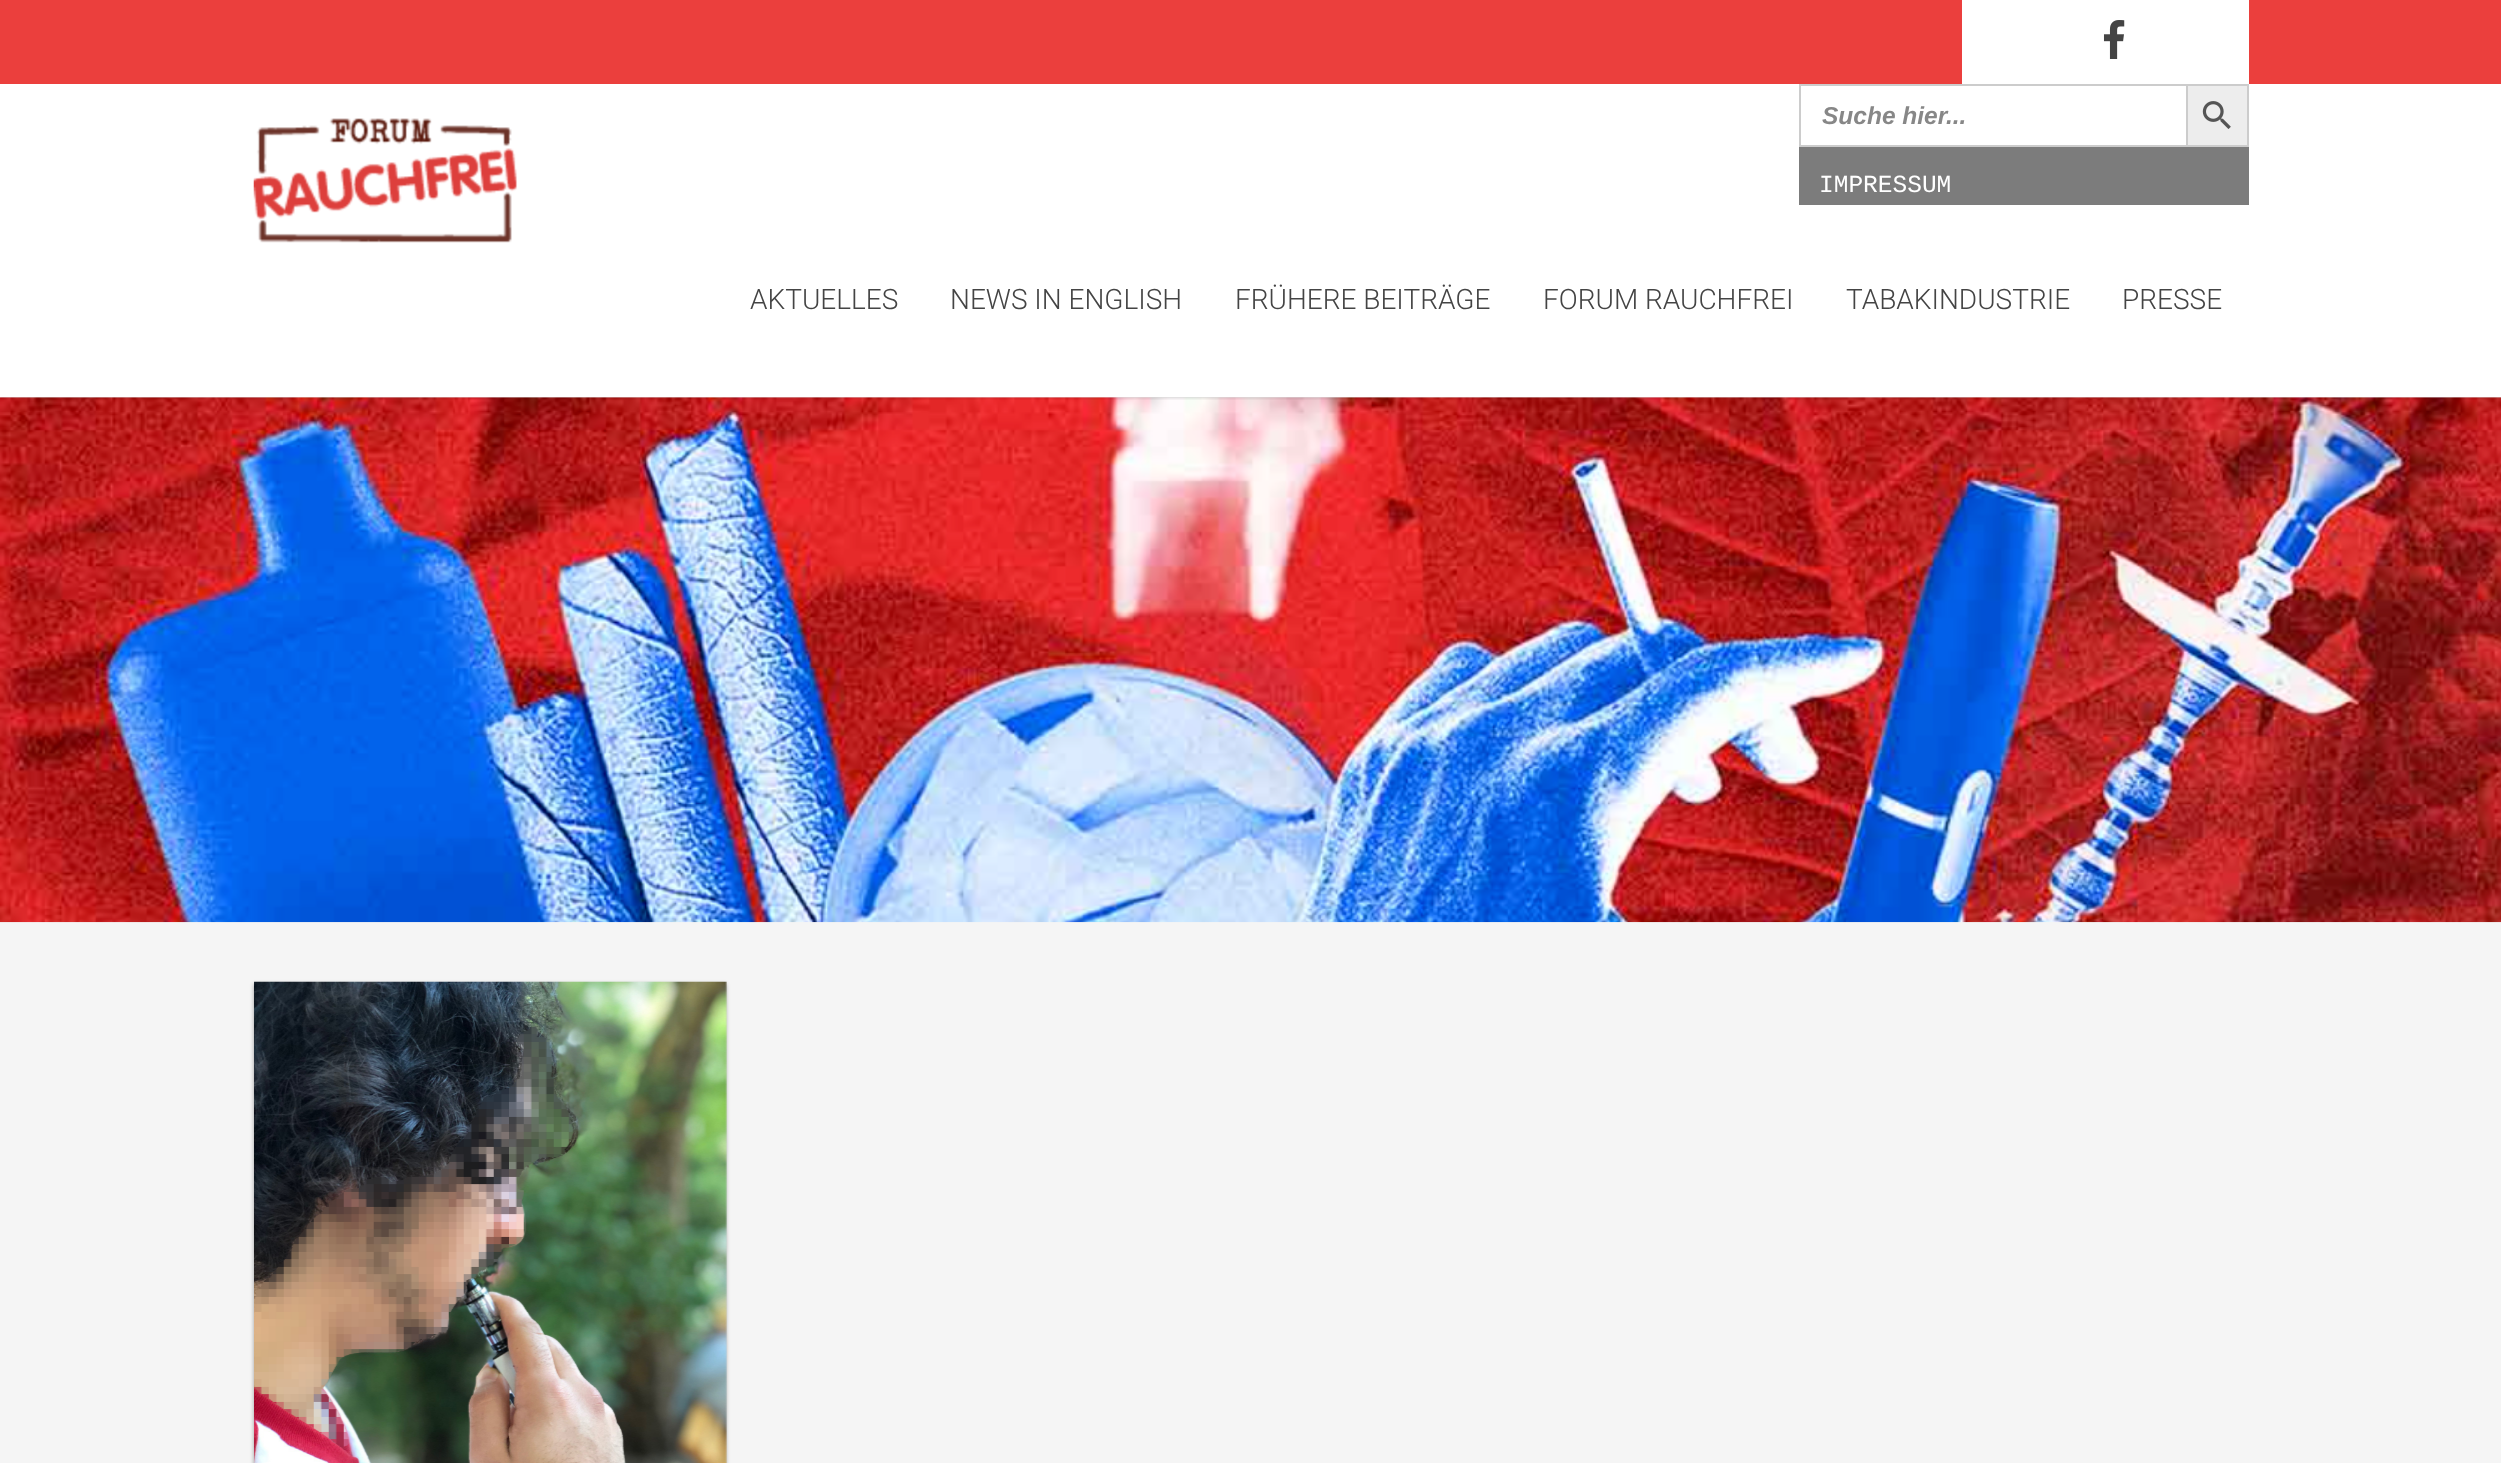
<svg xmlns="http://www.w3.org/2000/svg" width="2501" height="1463">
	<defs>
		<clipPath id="clip1"><rect x="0" y="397" width="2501" height="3" /></clipPath>
	</defs>
	<rect width="100%" height="100%" fill="#FFFFFF" />
	<rect x="0" y="0" width="2501" height="84" fill="#EB3F3D" />
	<rect x="1962" y="0" width="287" height="84" fill="#FFFFFF" />
	<image x="2103" y="20" width="22" height="39" href="assets/img1.png" />
	<rect x="0" y="397" width="2501" height="1066" fill="#F5F5F5" />
	<image x="0" y="397" width="2501" height="526" href="assets/img4.png" />
	<g clip-path="url(#clip1)">
		<rect x="0" y="86" width="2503" height="313" fill="#000000" fill-opacity="0.1" filter="blur(1px)" />
	</g>
	<image x="253" y="118" width="264" height="125" href="assets/img2.png" />
	<rect x="1799" y="84" width="387" height="2" fill="#CCCCCC" />
	<rect x="1799" y="145" width="387" height="2" fill="#CCCCCC" />
	<rect x="1799" y="84" width="2" height="63" fill="#CCCCCC" />
	<text x="1822" y="124" font-family="Liberation Sans" font-size="24.5" font-weight="700" font-style="italic" fill="#878787">Suche hier...</text>
	<rect x="2187" y="85" width="61" height="61" fill="#EDEDED" stroke="#CCCCCC" stroke-width="2" />
	<image x="2202" y="101" width="29" height="28" href="assets/img3.png" />
	<rect x="1799" y="147" width="450" height="58" fill="#7C7C7C" />
	<text x="1819" y="192" font-family="Liberation Mono" font-size="24.5" fill="#FFFFFF">IMPRESSUM</text>
	<g font-family="Roboto" font-size="28" font-weight="300" fill="#444444">
		<text x="750" y="309">AKTUELLES</text>
		<text x="950" y="309">NEWS IN ENGLISH</text>
		<text x="1235" y="309">FRÜHERE BEITRÄGE</text>
		<text x="1543" y="309">FORUM RAUCHFREI</text>
		<text x="1846" y="309">TABAKINDUSTRIE</text>
		<text x="2122" y="309">PRESSE</text>
	</g>
	<rect x="254" y="984" width="472" height="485" fill="#000000" fill-opacity="0.35" filter="blur(2px)" />
	<image x="254" y="981" width="473" height="482" href="assets/img5.png" />
</svg>
